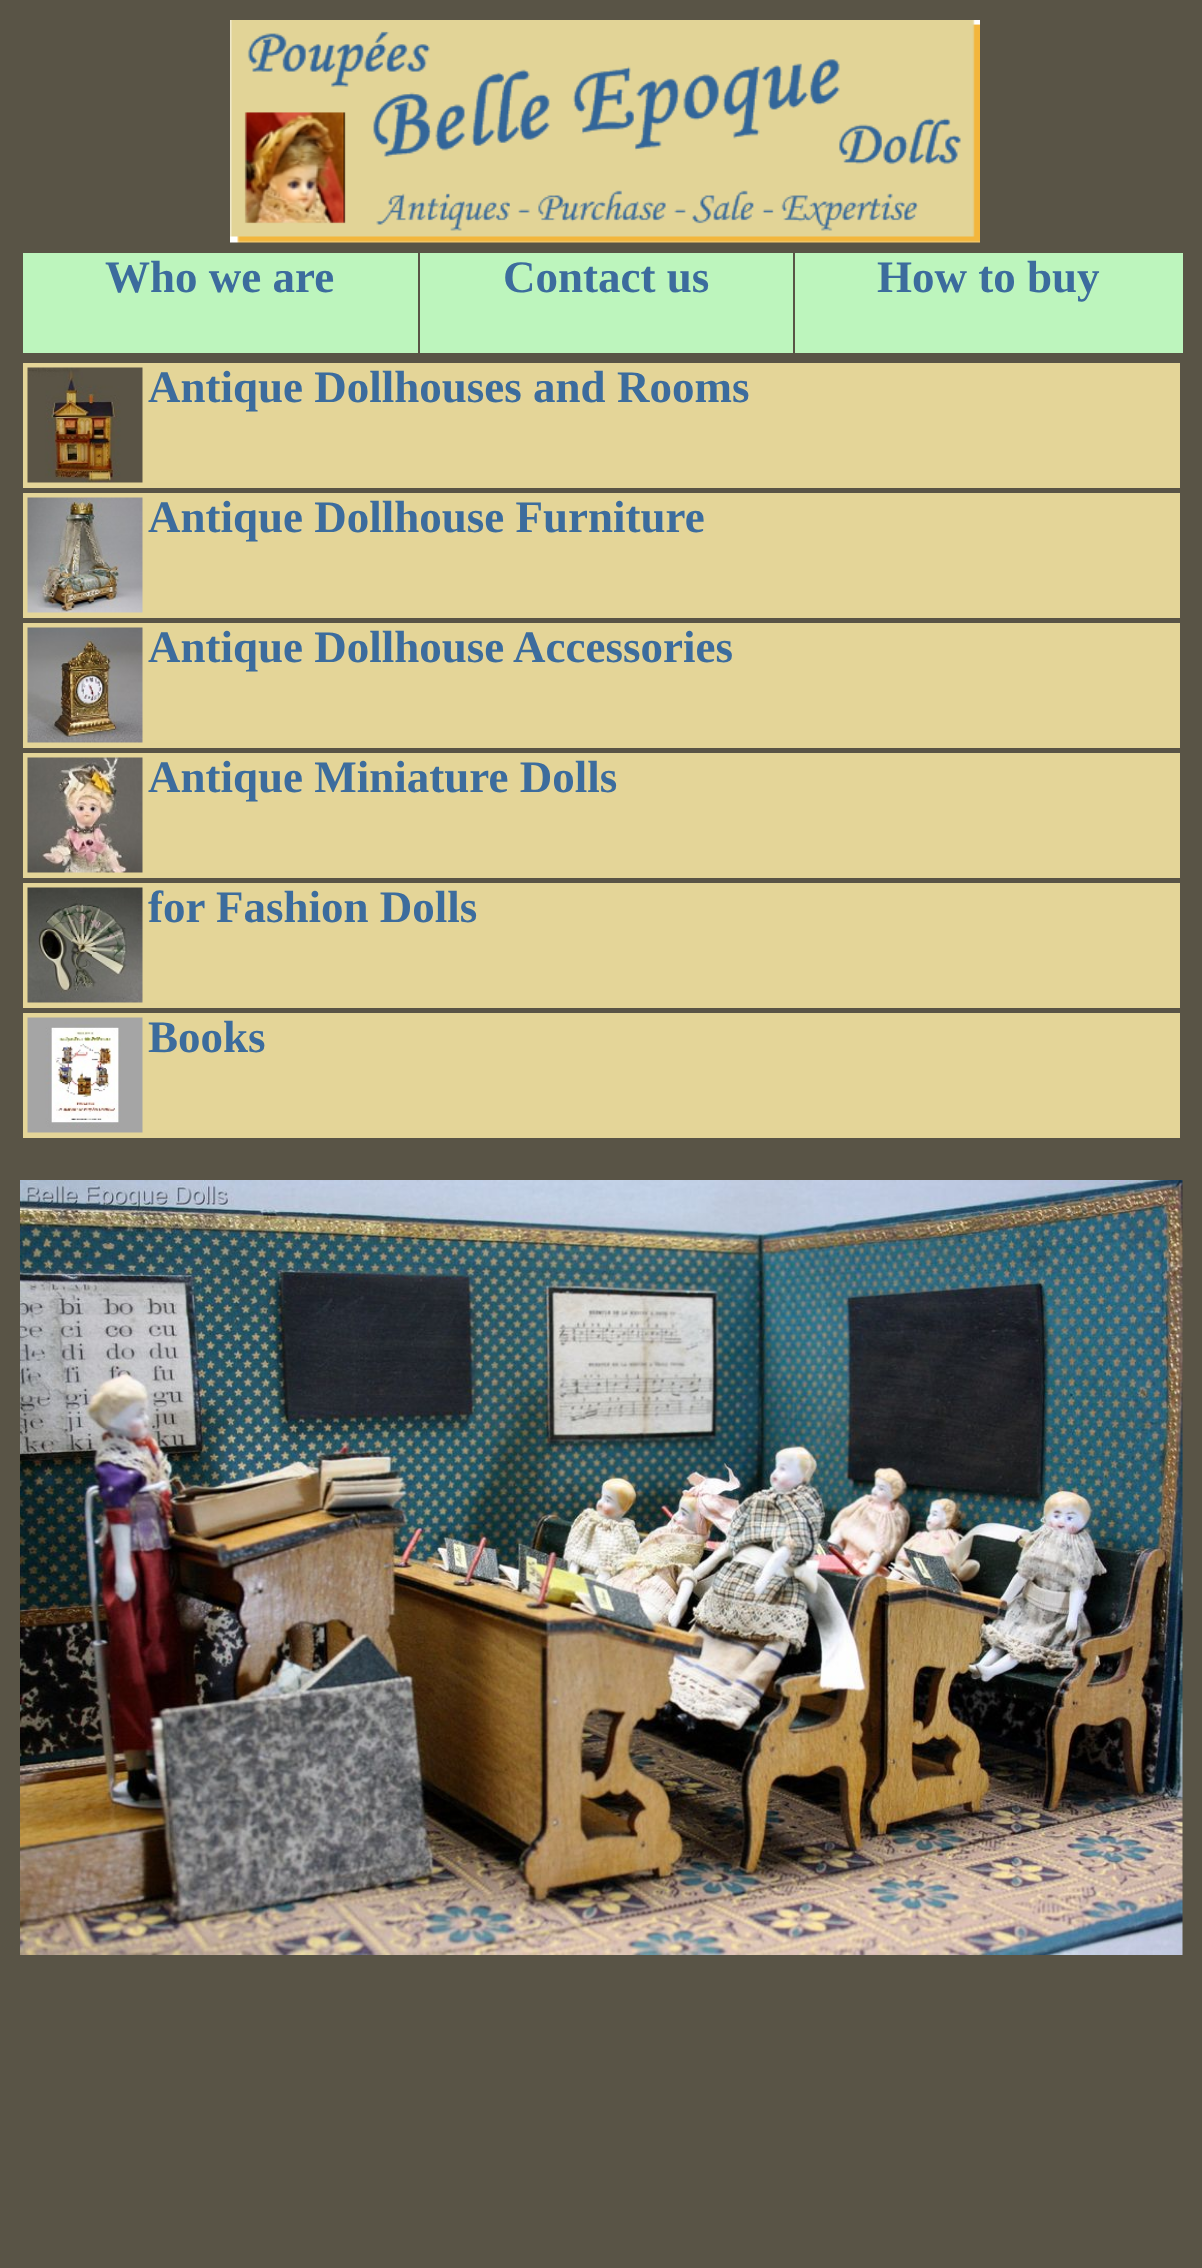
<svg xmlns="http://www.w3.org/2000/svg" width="1202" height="2268">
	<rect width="100%" height="100%" fill="#595446" />
	<image x="230" y="20" width="750" height="223" href="assets/img1.png" />
	<rect x="23" y="253" width="395" height="100" fill="#BDF5BD" />
	<text x="105" y="292" font-family="Liberation Serif" font-size="45" font-weight="700" fill="#3C6C9D">Who we are</text>
	<rect x="420" y="253" width="373" height="100" fill="#BDF5BD" />
	<text x="503" y="292" font-family="Liberation Serif" font-size="45" font-weight="700" fill="#3C6C9D">Contact us</text>
	<rect x="795" y="253" width="388" height="100" fill="#BDF5BD" />
	<text x="877" y="292" font-family="Liberation Serif" font-size="45" font-weight="700" fill="#3C6C9D">How to buy</text>
	<rect x="23" y="363" width="1157" height="125" fill="#E4D598" />
	<image x="27" y="367" width="116" height="116" href="assets/img2.png" />
	<text x="148" y="402" font-family="Liberation Serif" font-size="45" font-weight="700" fill="#3C6C9D">Antique Dollhouses and Rooms</text>
	<rect x="23" y="493" width="1157" height="125" fill="#E4D598" />
	<image x="27" y="497" width="116" height="116" href="assets/img3.png" />
	<text x="148" y="532" font-family="Liberation Serif" font-size="45" font-weight="700" fill="#3C6C9D">Antique Dollhouse Furniture</text>
	<rect x="23" y="623" width="1157" height="125" fill="#E4D598" />
	<image x="27" y="627" width="116" height="116" href="assets/img4.png" />
	<text x="148" y="662" font-family="Liberation Serif" font-size="45" font-weight="700" fill="#3C6C9D">Antique Dollhouse Accessories</text>
	<rect x="23" y="753" width="1157" height="125" fill="#E4D598" />
	<image x="27" y="757" width="116" height="116" href="assets/img5.png" />
	<text x="148" y="792" font-family="Liberation Serif" font-size="45" font-weight="700" fill="#3C6C9D">Antique Miniature Dolls</text>
	<rect x="23" y="883" width="1157" height="125" fill="#E4D598" />
	<image x="27" y="887" width="116" height="116" href="assets/img6.png" />
	<text x="148" y="922" font-family="Liberation Serif" font-size="45" font-weight="700" fill="#3C6C9D">for Fashion Dolls</text>
	<rect x="23" y="1013" width="1157" height="125" fill="#E4D598" />
	<image x="27" y="1017" width="116" height="116" href="assets/img7.png" />
	<text x="148" y="1052" font-family="Liberation Serif" font-size="45" font-weight="700" fill="#3C6C9D">Books</text>
	<image x="20" y="1180" width="1163" height="775" href="assets/img8.png" />
</svg>
